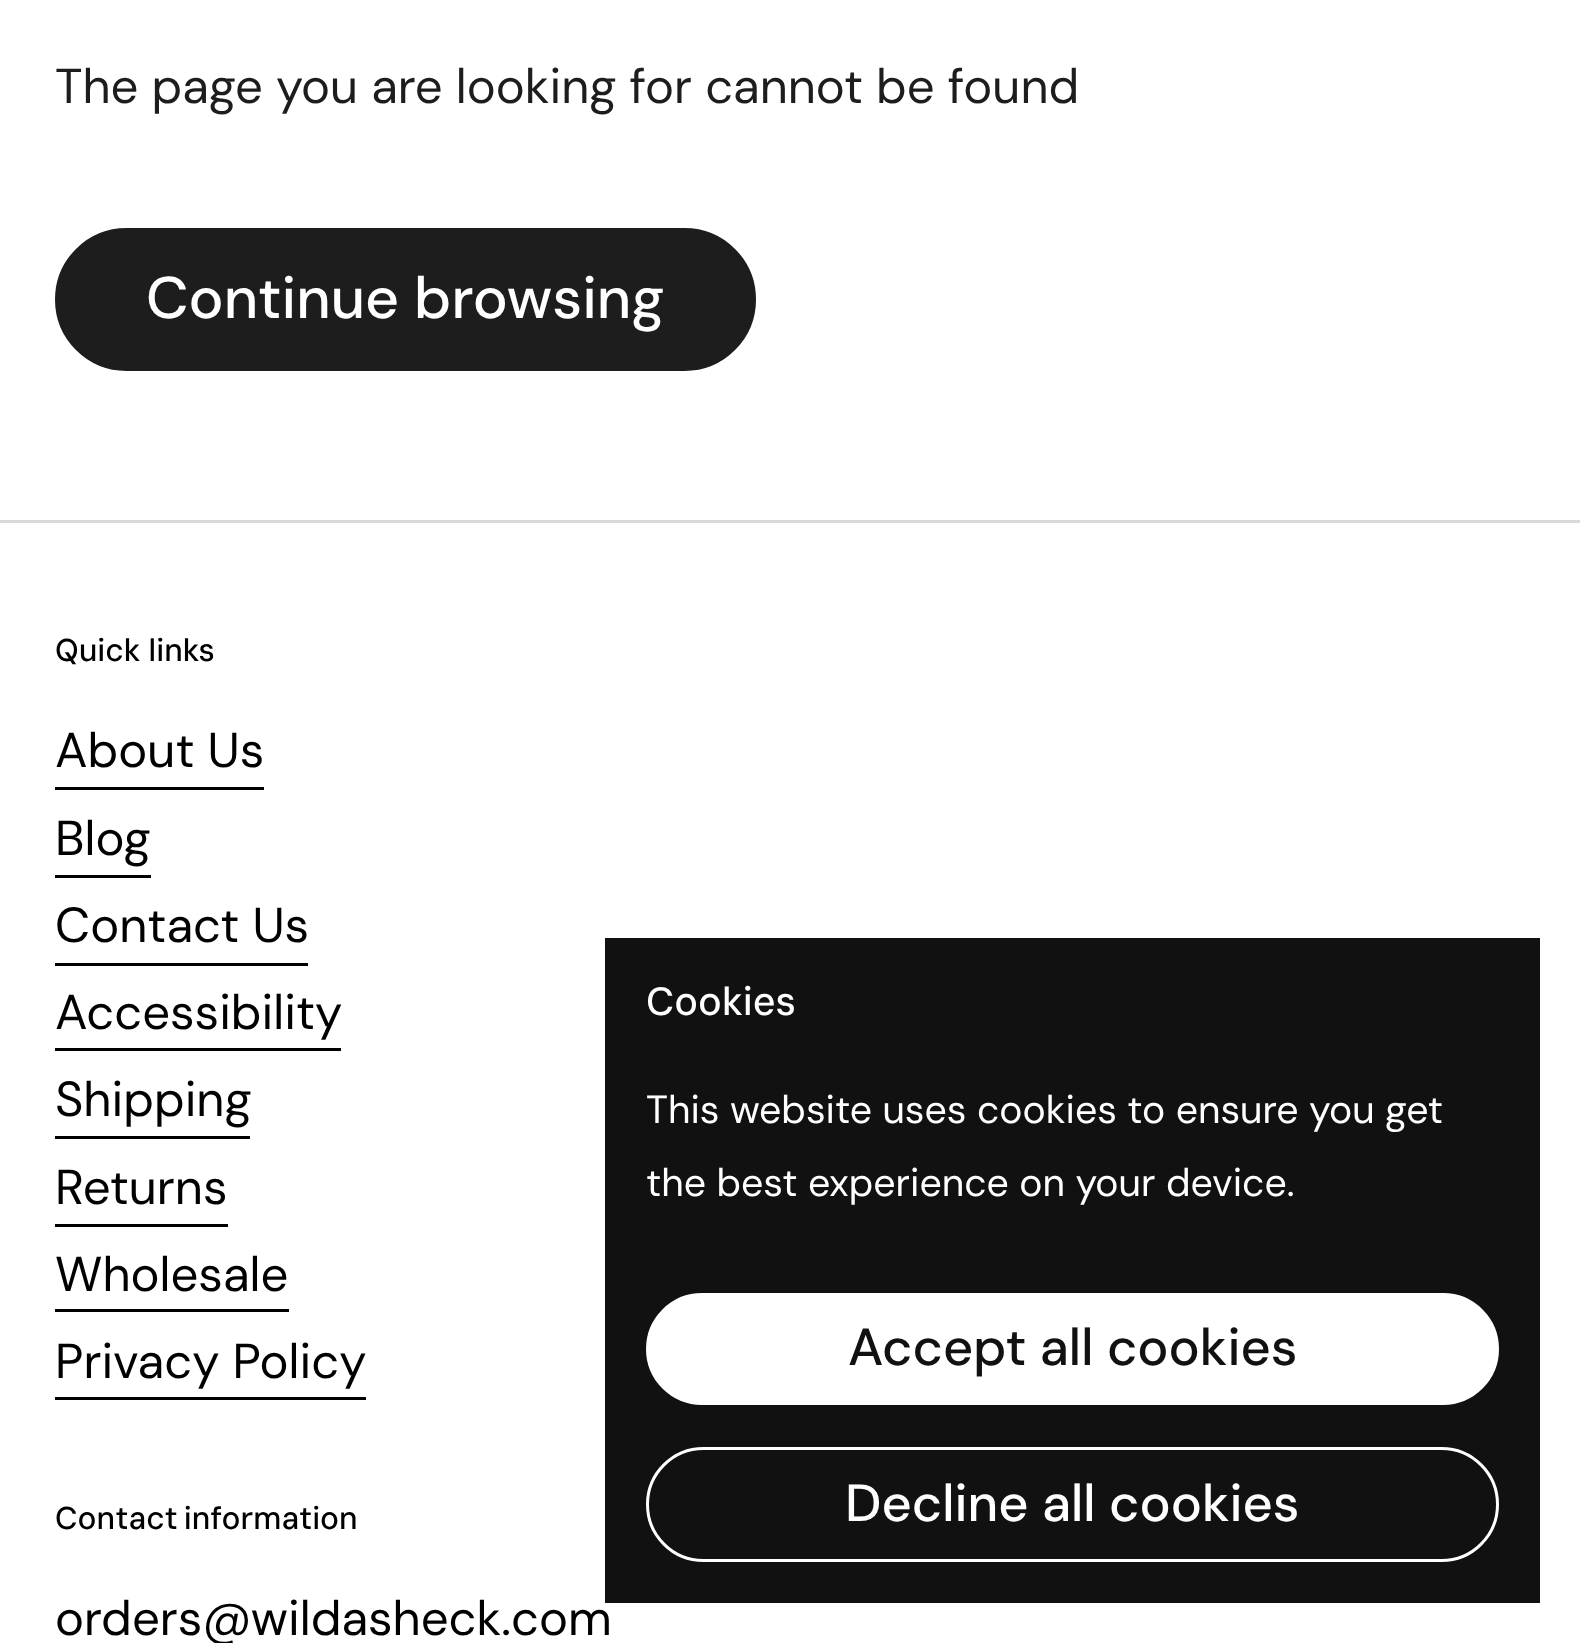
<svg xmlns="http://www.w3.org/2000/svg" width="1580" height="1643">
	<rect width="100%" height="100%" fill="#FFFFFF" />
	<text x="55" y="103" font-family="DM Sans" font-size="49" fill="#1D1D1D">The page you are looking for cannot be found</text>
	<rect x="56.5" y="229.5" width="698" height="140" rx="70" fill="#1D1D1D" stroke="#1D1D1D" stroke-width="3" />
	<text x="146" y="318" font-family="DM Sans" font-size="58.75" font-weight="500" fill="#FFFFFF">Continue browsing</text>
	<rect x="0" y="520" width="1580" height="3" fill="#D9D9D9" />
	<text x="55" y="661" font-family="'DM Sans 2'" font-size="31.5" font-weight="500" fill="#000000">Quick links</text>
	<text x="55" y="767" font-family="DM Sans" font-size="49" fill="#000000">About Us</text>
	<rect x="55" y="787" width="209" height="3" fill="#000000" />
	<text x="55" y="855" font-family="DM Sans" font-size="49" fill="#000000">Blog</text>
	<rect x="55" y="875" width="96" height="3" fill="#000000" />
	<text x="55" y="942" font-family="DM Sans" font-size="49" fill="#000000">Contact Us</text>
	<rect x="55" y="963" width="253" height="3" fill="#000000" />
	<text x="55" y="1029" font-family="DM Sans" font-size="49" fill="#000000">Accessibility</text>
	<rect x="55" y="1048" width="286" height="3" fill="#000000" />
	<text x="55" y="1116" font-family="DM Sans" font-size="49" fill="#000000">Shipping</text>
	<rect x="55" y="1136" width="195" height="3" fill="#000000" />
	<text x="55" y="1204" font-family="DM Sans" font-size="49" fill="#000000">Returns</text>
	<rect x="55" y="1224" width="173" height="3" fill="#000000" />
	<text x="55" y="1291" font-family="DM Sans" font-size="49" fill="#000000">Wholesale</text>
	<rect x="55" y="1309" width="234" height="3" fill="#000000" />
	<text x="55" y="1378" font-family="DM Sans" font-size="49" fill="#000000">Privacy Policy</text>
	<rect x="55" y="1397" width="311" height="3" fill="#000000" />
	<text x="55" y="1529" word-spacing="-2" font-family="'DM Sans 2'" font-size="31.5" font-weight="500" fill="#000000">Contact information</text>
	<text x="55" y="1635" font-family="DM Sans" font-size="49" fill="#000000">orders@wildasheck.com</text>
	<rect x="605" y="938" width="935" height="665" fill="#111111" />
	<text x="646" y="1015" font-family="'DM Sans 2'" font-size="39.5" font-weight="500" fill="#FFFFFF">Cookies</text>
	<g font-family="'DM Sans 2'" font-size="39.2" fill="#FFFFFF">
		<text x="646" y="1123">This website uses cookies to ensure you get</text>
		<text x="646" y="1196">the best experience on your device.</text>
	</g>
	<rect x="647.5" y="1294.5" width="850" height="109" rx="54.5" fill="#FFFFFF" stroke="#FFFFFF" stroke-width="3" />
	<text x="848" y="1365" font-family="'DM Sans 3'" font-size="52.25" font-weight="500" fill="#111111">Accept all cookies</text>
	<rect x="647.5" y="1448.5" width="850" height="112" rx="56" fill="none" stroke="#FFFFFF" stroke-width="3" />
	<text x="845" y="1521" font-family="'DM Sans 3'" font-size="52.25" font-weight="500" fill="#FFFFFF">Decline all cookies</text>
</svg>
